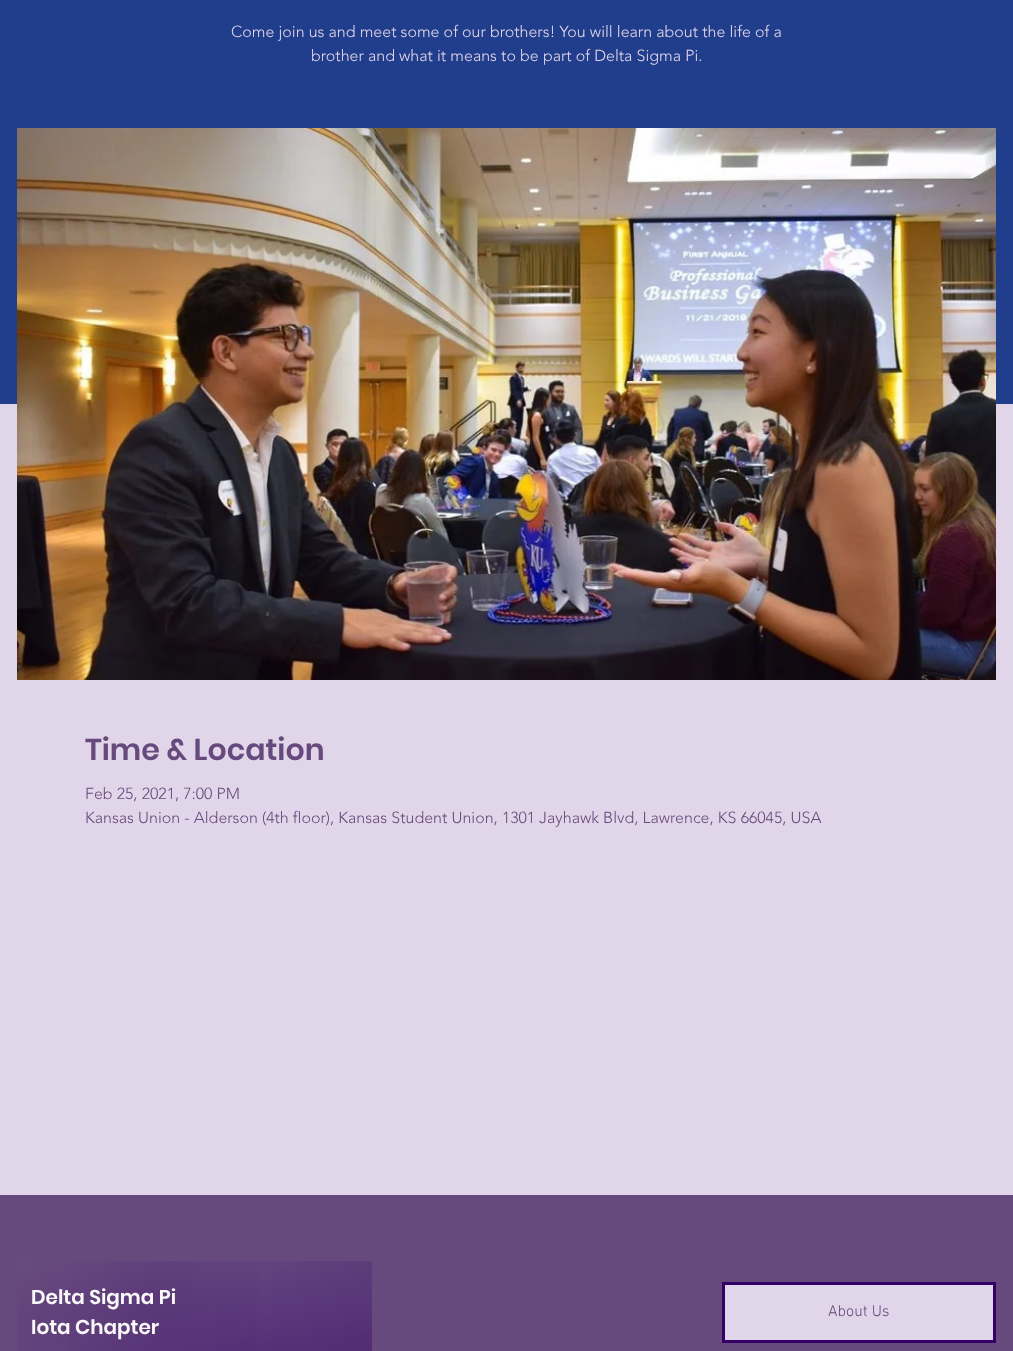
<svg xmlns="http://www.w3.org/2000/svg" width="1013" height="1351">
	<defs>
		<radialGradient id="g1" gradientUnits="userSpaceOnUse" cx="191" cy="1433" r="253"><stop offset="0" stop-color="#E1D6E9" /><stop offset="1" stop-color="#674A7D" /></radialGradient>
		<radialGradient id="g2" gradientUnits="userSpaceOnUse" cx="236" cy="1392" r="309"><stop offset="0" stop-color="#674A7D" /><stop offset="0.7" stop-color="#674A7D" stop-opacity="0" /></radialGradient>
		<radialGradient id="g3" gradientUnits="userSpaceOnUse" cx="39" cy="1305" r="451"><stop offset="0" stop-color="#674A7D" /><stop offset="0.7" stop-color="#674A7D" stop-opacity="0" /></radialGradient>
		<radialGradient id="g4" gradientUnits="userSpaceOnUse" cx="365" cy="1342" r="439"><stop offset="0" stop-color="#674A7D" /><stop offset="0.4" stop-color="#674A7D" stop-opacity="0" /></radialGradient>
		<radialGradient id="g5" gradientUnits="userSpaceOnUse" cx="149" cy="1300" r="381"><stop offset="0" stop-color="#674A7D" /><stop offset="0.35" stop-color="#674A7D" stop-opacity="0" /></radialGradient>
		<radialGradient id="g6" gradientUnits="userSpaceOnUse" cx="301" cy="1609" r="449"><stop offset="0" stop-color="#330066" /><stop offset="1" stop-color="#330066" stop-opacity="0" /></radialGradient>
	</defs>
	<rect width="100%" height="100%" fill="#E1D6E9" />
	<rect x="0" y="0" width="1013" height="404" fill="#213E8C" />
	<g font-family="'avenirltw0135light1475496'" font-size="16" font-weight="300" fill="#E1D6E9">
		<text x="231" y="37">Come join us and meet some of our brothers! You will learn about the life of a</text>
		<text x="311" y="61">brother and what it means to be part of Delta Sigma Pi.</text>
	</g>
	<image x="17" y="128" width="979" height="552" href="assets/img1.png" />
	<text x="85" y="760" font-family="Poppins" font-size="30" font-weight="600" fill="#674A7D">Time &amp; Location</text>
	<g font-family="'avenirltw0135light1475496'" font-size="16" font-weight="300" fill="#674A7D">
		<text x="85" y="799">Feb 25, 2021, 7:00 PM</text>
		<text x="85" y="823">Kansas Union - Alderson (4th floor), Kansas Student Union, 1301 Jayhawk Blvd, Lawrence, KS 66045, USA</text>
	</g>
	<rect x="0" y="1195" width="1013" height="156" fill="#674A7D" />
	<rect x="17" y="1261" width="355" height="90" fill="url(#g1)" />
	<rect x="36" y="1261" width="336" height="90" fill="url(#g2)" />
	<rect x="17" y="1261" width="308" height="90" fill="url(#g3)" />
	<rect x="215" y="1261" width="157" height="90" fill="url(#g4)" />
	<rect x="67" y="1261" width="192" height="90" fill="url(#g5)" />
	<rect x="17" y="1261" width="355" height="90" fill="url(#g6)" />
	<g font-family="Poppins" font-size="20" font-weight="600" fill="#F9F9F9">
		<text x="31" y="1304">Delta Sigma Pi</text>
		<text x="31" y="1334">Iota Chapter</text>
	</g>
	<rect x="723.5" y="1283.5" width="271" height="58" fill="#E1D6E9" stroke="#330066" stroke-width="3" />
	<text x="828" y="1316" font-family="'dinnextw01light'" font-size="16" font-weight="300" fill="#674A7D">About Us</text>
</svg>
